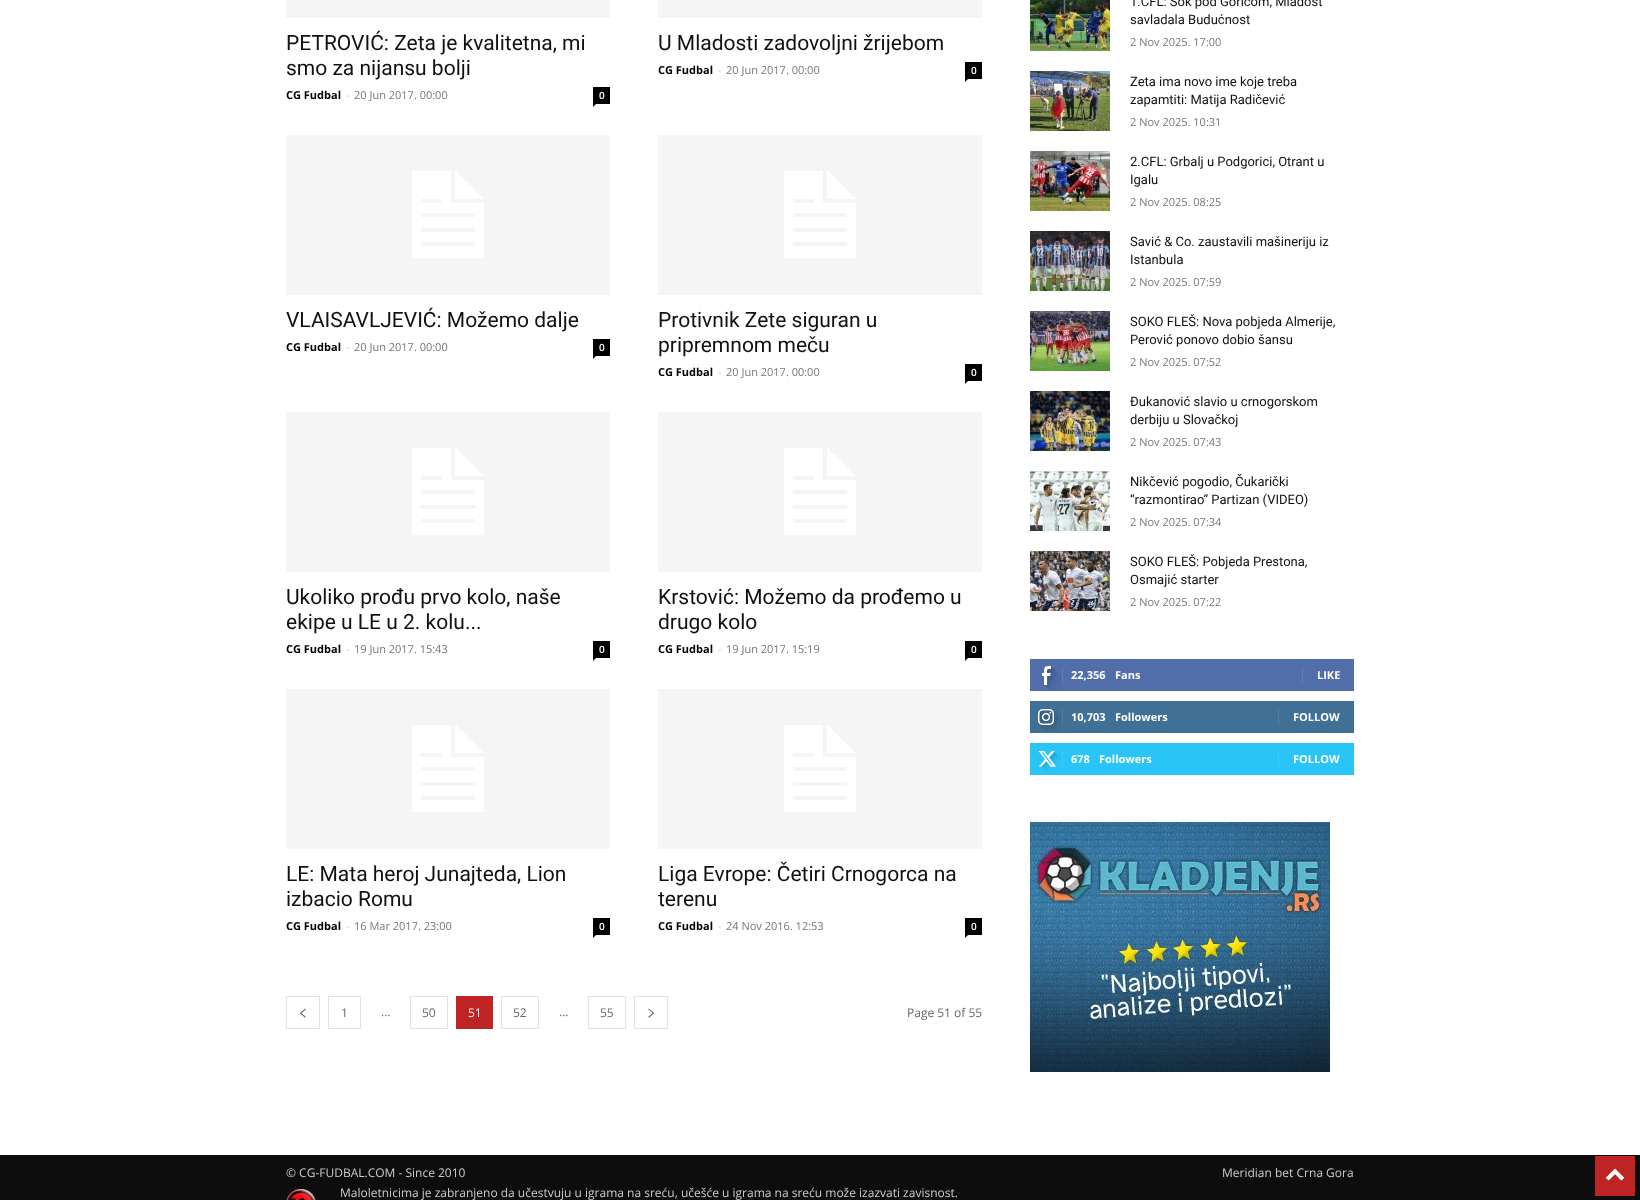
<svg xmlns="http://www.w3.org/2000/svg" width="1640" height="1200">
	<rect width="100%" height="100%" fill="#FFFFFF" />
	<rect x="286" y="0" width="324" height="18" fill="#F5F5F5" />
	<g font-family="Roboto" font-size="21" fill="#111111">
		<text x="286" y="50">PETROVIĆ: Zeta je kvalitetna, mi</text>
		<text x="286" y="75">smo za nijansu bolji</text>
	</g>
	<text x="286" y="99" font-family="Open Sans" font-size="11" font-weight="700" fill="#000000">CG Fudbal</text>
	<text x="346" y="99" font-family="Open Sans" font-size="11" fill="#CCCCCC">-</text>
	<text x="354" y="99" font-family="Open Sans" font-size="11" fill="#767676">20 Jun 2017. 00:00</text>
	<rect x="593" y="87" width="17" height="17" fill="#000000" />
	<text x="599" y="99" font-family="Open Sans" font-size="10" font-weight="600" fill="#FFFFFF">0</text>
	<path d="M593 104H596L593 107Z" fill="#000000" />
	<rect x="658" y="0" width="324" height="18" fill="#F5F5F5" />
	<text x="658" y="50" font-family="Roboto" font-size="21" fill="#111111">U Mladosti zadovoljni žrijebom</text>
	<text x="658" y="74" font-family="Open Sans" font-size="11" font-weight="700" fill="#000000">CG Fudbal</text>
	<text x="718" y="74" font-family="Open Sans" font-size="11" fill="#CCCCCC">-</text>
	<text x="726" y="74" font-family="Open Sans" font-size="11" fill="#767676">20 Jun 2017. 00:00</text>
	<rect x="965" y="62" width="17" height="17" fill="#000000" />
	<text x="971" y="74" font-family="Open Sans" font-size="10" font-weight="600" fill="#FFFFFF">0</text>
	<path d="M965 79H968L965 82Z" fill="#000000" />
	<image x="286" y="135" width="324" height="160" href="assets/img1.png" />
	<text x="286" y="327" font-family="Roboto" font-size="21" fill="#111111">VLAISAVLJEVIĆ: Možemo dalje</text>
	<text x="286" y="351" font-family="Open Sans" font-size="11" font-weight="700" fill="#000000">CG Fudbal</text>
	<text x="346" y="351" font-family="Open Sans" font-size="11" fill="#CCCCCC">-</text>
	<text x="354" y="351" font-family="Open Sans" font-size="11" fill="#767676">20 Jun 2017. 00:00</text>
	<rect x="593" y="339" width="17" height="17" fill="#000000" />
	<text x="599" y="351" font-family="Open Sans" font-size="10" font-weight="600" fill="#FFFFFF">0</text>
	<path d="M593 356H596L593 359Z" fill="#000000" />
	<image x="658" y="135" width="324" height="160" href="assets/img1.png" />
	<g font-family="Roboto" font-size="21" fill="#111111">
		<text x="658" y="327">Protivnik Zete siguran u</text>
		<text x="658" y="352">pripremnom meču</text>
	</g>
	<text x="658" y="376" font-family="Open Sans" font-size="11" font-weight="700" fill="#000000">CG Fudbal</text>
	<text x="718" y="376" font-family="Open Sans" font-size="11" fill="#CCCCCC">-</text>
	<text x="726" y="376" font-family="Open Sans" font-size="11" fill="#767676">20 Jun 2017. 00:00</text>
	<rect x="965" y="364" width="17" height="17" fill="#000000" />
	<text x="971" y="376" font-family="Open Sans" font-size="10" font-weight="600" fill="#FFFFFF">0</text>
	<path d="M965 381H968L965 384Z" fill="#000000" />
	<image x="286" y="412" width="324" height="160" href="assets/img1.png" />
	<g font-family="Roboto" font-size="21" fill="#111111">
		<text x="286" y="604">Ukoliko prođu prvo kolo, naše</text>
		<text x="286" y="629">ekipe u LE u 2. kolu...</text>
	</g>
	<text x="286" y="653" font-family="Open Sans" font-size="11" font-weight="700" fill="#000000">CG Fudbal</text>
	<text x="346" y="653" font-family="Open Sans" font-size="11" fill="#CCCCCC">-</text>
	<text x="354" y="653" font-family="Open Sans" font-size="11" fill="#767676">19 Jun 2017. 15:43</text>
	<rect x="593" y="641" width="17" height="17" fill="#000000" />
	<text x="599" y="653" font-family="Open Sans" font-size="10" font-weight="600" fill="#FFFFFF">0</text>
	<path d="M593 658H596L593 661Z" fill="#000000" />
	<image x="658" y="412" width="324" height="160" href="assets/img1.png" />
	<g font-family="Roboto" font-size="21" fill="#111111">
		<text x="658" y="604">Krstović: Možemo da prođemo u</text>
		<text x="658" y="629">drugo kolo</text>
	</g>
	<text x="658" y="653" font-family="Open Sans" font-size="11" font-weight="700" fill="#000000">CG Fudbal</text>
	<text x="718" y="653" font-family="Open Sans" font-size="11" fill="#CCCCCC">-</text>
	<text x="726" y="653" font-family="Open Sans" font-size="11" fill="#767676">19 Jun 2017. 15:19</text>
	<rect x="965" y="641" width="17" height="17" fill="#000000" />
	<text x="971" y="653" font-family="Open Sans" font-size="10" font-weight="600" fill="#FFFFFF">0</text>
	<path d="M965 658H968L965 661Z" fill="#000000" />
	<image x="286" y="689" width="324" height="160" href="assets/img1.png" />
	<g font-family="Roboto" font-size="21" fill="#111111">
		<text x="286" y="881">LE: Mata heroj Junajteda, Lion</text>
		<text x="286" y="906">izbacio Romu</text>
	</g>
	<text x="286" y="930" font-family="Open Sans" font-size="11" font-weight="700" fill="#000000">CG Fudbal</text>
	<text x="346" y="930" font-family="Open Sans" font-size="11" fill="#CCCCCC">-</text>
	<text x="354" y="930" font-family="Open Sans" font-size="11" fill="#767676">16 Mar 2017. 23:00</text>
	<rect x="593" y="918" width="17" height="17" fill="#000000" />
	<text x="599" y="930" font-family="Open Sans" font-size="10" font-weight="600" fill="#FFFFFF">0</text>
	<path d="M593 935H596L593 938Z" fill="#000000" />
	<image x="658" y="689" width="324" height="160" href="assets/img1.png" />
	<g font-family="Roboto" font-size="21" fill="#111111">
		<text x="658" y="881">Liga Evrope: Četiri Crnogorca na</text>
		<text x="658" y="906">terenu</text>
	</g>
	<text x="658" y="930" font-family="Open Sans" font-size="11" font-weight="700" fill="#000000">CG Fudbal</text>
	<text x="718" y="930" font-family="Open Sans" font-size="11" fill="#CCCCCC">-</text>
	<text x="726" y="930" font-family="Open Sans" font-size="11" fill="#767676">24 Nov 2016. 12:53</text>
	<rect x="965" y="918" width="17" height="17" fill="#000000" />
	<text x="971" y="930" font-family="Open Sans" font-size="10" font-weight="600" fill="#FFFFFF">0</text>
	<path d="M965 935H968L965 938Z" fill="#000000" />
	<rect x="286.5" y="996.5" width="33" height="32" fill="none" stroke="#E3E3E3" />
	<image x="300" y="1008" width="6" height="10" href="assets/img2.png" />
	<rect x="328.5" y="996.5" width="32" height="32" fill="none" stroke="#E3E3E3" />
	<g font-family="Open Sans" font-size="12" fill="#666666">
		<text x="341" y="1017">1</text>
		<text x="381" y="1016">...</text>
	</g>
	<rect x="410.5" y="996.5" width="37" height="32" fill="none" stroke="#E3E3E3" />
	<text x="422" y="1017" font-family="Open Sans" font-size="12" fill="#666666">50</text>
	<rect x="456" y="996" width="37" height="33" fill="#BE2424" />
	<text x="468" y="1017" font-family="Open Sans" font-size="12" fill="#FFFFFF">51</text>
	<rect x="501.5" y="996.5" width="37" height="32" fill="none" stroke="#E3E3E3" />
	<g font-family="Open Sans" font-size="12" fill="#666666">
		<text x="513" y="1017">52</text>
		<text x="559" y="1016">...</text>
	</g>
	<rect x="588.5" y="996.5" width="37" height="32" fill="none" stroke="#E3E3E3" />
	<text x="600" y="1017" font-family="Open Sans" font-size="12" fill="#666666">55</text>
	<rect x="634.5" y="996.5" width="33" height="32" fill="none" stroke="#E3E3E3" />
	<image x="648" y="1008" width="6" height="10" href="assets/img3.png" />
	<text x="907" y="1017" font-family="Open Sans" font-size="12" fill="#666666">Page 51 of 55</text>
	<image x="1030" y="0" width="80" height="51" href="assets/img4.png" />
	<g font-family="Roboto" font-size="13" fill="#111111">
		<text x="1130" y="6">1.CFL: Šok pod Goricom, Mladost</text>
		<text x="1130" y="24">savladala Budućnost</text>
	</g>
	<text x="1130" y="46" font-family="Open Sans" font-size="11" fill="#767676">2 Nov 2025. 17:00</text>
	<image x="1030" y="71" width="80" height="60" href="assets/img5.png" />
	<g font-family="Roboto" font-size="13" fill="#111111">
		<text x="1130" y="86">Zeta ima novo ime koje treba</text>
		<text x="1130" y="104">zapamtiti: Matija Radičević</text>
	</g>
	<text x="1130" y="126" font-family="Open Sans" font-size="11" fill="#767676">2 Nov 2025. 10:31</text>
	<image x="1030" y="151" width="80" height="60" href="assets/img6.png" />
	<g font-family="Roboto" font-size="13" fill="#111111">
		<text x="1130" y="166">2.CFL: Grbalj u Podgorici, Otrant u</text>
		<text x="1130" y="184">Igalu</text>
	</g>
	<text x="1130" y="206" font-family="Open Sans" font-size="11" fill="#767676">2 Nov 2025. 08:25</text>
	<image x="1030" y="231" width="80" height="60" href="assets/img7.png" />
	<g font-family="Roboto" font-size="13" fill="#111111">
		<text x="1130" y="246">Savić &amp; Co. zaustavili mašineriju iz</text>
		<text x="1130" y="264">Istanbula</text>
	</g>
	<text x="1130" y="286" font-family="Open Sans" font-size="11" fill="#767676">2 Nov 2025. 07:59</text>
	<image x="1030" y="311" width="80" height="60" href="assets/img8.png" />
	<g font-family="Roboto" font-size="13" fill="#111111">
		<text x="1130" y="326">SOKO FLEŠ: Nova pobjeda Almerije,</text>
		<text x="1130" y="344">Perović ponovo dobio šansu</text>
	</g>
	<text x="1130" y="366" font-family="Open Sans" font-size="11" fill="#767676">2 Nov 2025. 07:52</text>
	<image x="1030" y="391" width="80" height="60" href="assets/img9.png" />
	<g font-family="Roboto" font-size="13" fill="#111111">
		<text x="1130" y="406">Đukanović slavio u crnogorskom</text>
		<text x="1130" y="424">derbiju u Slovačkoj</text>
	</g>
	<text x="1130" y="446" font-family="Open Sans" font-size="11" fill="#767676">2 Nov 2025. 07:43</text>
	<image x="1030" y="471" width="80" height="60" href="assets/img10.png" />
	<g font-family="Roboto" font-size="13" fill="#111111">
		<text x="1130" y="486">Nikčević pogodio, Čukarički</text>
		<text x="1130" y="504">“razmontirao” Partizan (VIDEO)</text>
	</g>
	<text x="1130" y="526" font-family="Open Sans" font-size="11" fill="#767676">2 Nov 2025. 07:34</text>
	<image x="1030" y="551" width="80" height="60" href="assets/img11.png" />
	<g font-family="Roboto" font-size="13" fill="#111111">
		<text x="1130" y="566">SOKO FLEŠ: Pobjeda Prestona,</text>
		<text x="1130" y="584">Osmajić starter</text>
	</g>
	<text x="1130" y="606" font-family="Open Sans" font-size="11" fill="#767676">2 Nov 2025. 07:22</text>
	<rect x="1030" y="659" width="324" height="32" fill="#516EAB" />
	<image x="1042" y="666" width="20" height="25" href="assets/img12.png" />
	<rect x="1062" y="667" width="1" height="16" fill="#627DB3" />
	<g font-family="Open Sans" font-size="11" font-weight="700" fill="#FFFFFF">
		<text x="1071" y="679">22,356</text>
		<text x="1115" y="679">Fans</text>
	</g>
	<rect x="1302" y="667" width="1" height="16" fill="#627DB3" />
	<text x="1317" y="679" font-family="Open Sans" font-size="11" font-weight="700" fill="#FFFFFF">LIKE</text>
	<rect x="1030" y="701" width="324" height="32" fill="#417096" />
	<image x="1038" y="709" width="23" height="23" href="assets/img13.png" />
	<rect x="1062" y="709" width="1" height="16" fill="#547EA1" />
	<g font-family="Open Sans" font-size="11" font-weight="700" fill="#FFFFFF">
		<text x="1071" y="721">10,703</text>
		<text x="1115" y="721">Followers</text>
	</g>
	<rect x="1278" y="709" width="1" height="16" fill="#547EA1" />
	<text x="1293" y="721" font-family="Open Sans" font-size="11" font-weight="700" fill="#FFFFFF">FOLLOW</text>
	<rect x="1030" y="743" width="324" height="32" fill="#29C5F6" />
	<image x="1038" y="751" width="23" height="21" href="assets/img14.png" />
	<rect x="1062" y="751" width="1" height="16" fill="#3ECBF7" />
	<g font-family="Open Sans" font-size="11" font-weight="700" fill="#FFFFFF">
		<text x="1071" y="763">678</text>
		<text x="1099" y="763">Followers</text>
	</g>
	<rect x="1278" y="751" width="1" height="16" fill="#3ECBF7" />
	<text x="1293" y="763" font-family="Open Sans" font-size="11" font-weight="700" fill="#FFFFFF">FOLLOW</text>
	<image x="1030" y="822" width="300" height="250" href="assets/img15.png" />
	<rect x="0" y="1155" width="1640" height="45" fill="#0D0D0D" />
	<text x="286" y="1177" font-family="Open Sans" font-size="12" fill="#CCCCCC">© CG-FUDBAL.COM - Since 2010</text>
	<image x="286" y="1189" width="30" height="11" href="assets/img16.png" />
	<g font-family="Open Sans" font-size="12" fill="#CCCCCC">
		<text x="340" y="1197">Maloletnicima je zabranjeno da učestvuju u igrama na sreću, učešće u igrama na sreću može izazvati zavisnost.</text>
		<text x="1222" y="1177">Meridian bet Crna Gora</text>
	</g>
	<rect x="1595" y="1156" width="40" height="40" fill="#BE2424" />
	<image x="1606" y="1168" width="18" height="13" href="assets/img17.png" />
</svg>
